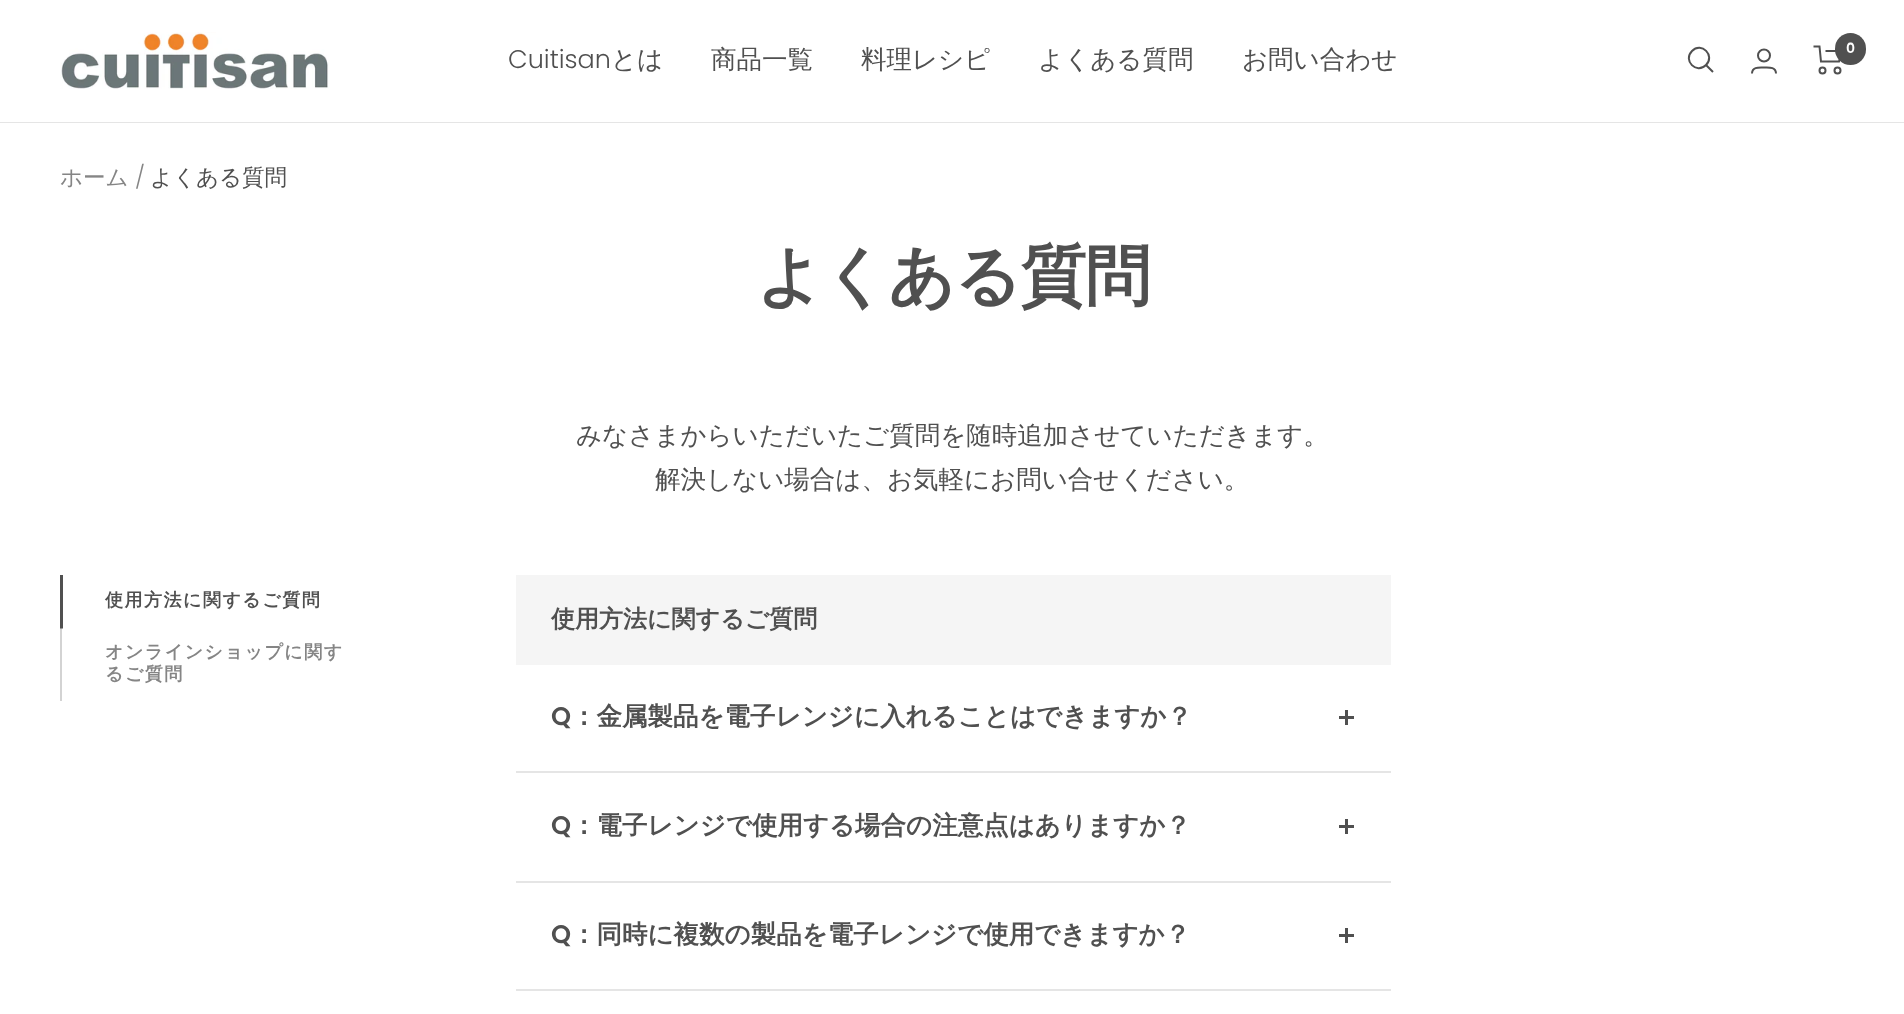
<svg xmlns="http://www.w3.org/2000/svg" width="1904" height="1014">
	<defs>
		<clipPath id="clip1"><rect x="60" y="575" width="329" height="126" /></clipPath>
	</defs>
	<rect width="100%" height="100%" fill="#FFFFFF" />
	<rect x="0" y="122" width="1904" height="1" fill="#E5E5E5" />
	<image x="60" y="32" width="269" height="57" href="assets/img1.png" />
	<text x="508" y="68" font-family="Poppins" font-size="25.5" font-weight="300" fill="#505050">Cuitisan</text>
	<g font-family="WenQuanYi Zen Hei" font-size="25.5" font-weight="500" fill="#505050">
		<text x="611" y="68">とは</text>
		<text x="711" y="68">商品一覧</text>
		<text x="861" y="68">料理レシピ</text>
		<text x="1038" y="68">よくある質問</text>
		<text x="1242" y="68">お問い合わせ</text>
	</g>
	<path d="M1706 65C1715.5 55.5 1701.5 41.5 1692 51C1682.5 60.5 1696.5 74.5 1706 65ZM1706 65L1713 72" fill="none" stroke="#505050" stroke-width="2" />
	<circle cx="1764" cy="55.5" r="6" fill="none" stroke="#505050" stroke-width="2" />
	<path d="M1752 73.5C1752 66.5 1759.5 67.5 1764 67.5C1768.5 67.5 1776 66.5 1776 73.5" fill="none" stroke="#505050" stroke-width="2" />
	<path d="M1813.5 46.5H1819.5L1821 61.5H1839L1842 51H1825.5" fill="none" stroke="#505050" stroke-width="2" />
	<circle cx="1822.5" cy="70.5" r="3" fill="none" stroke="#505050" stroke-width="2" />
	<circle cx="1837.5" cy="70.5" r="3" fill="none" stroke="#505050" stroke-width="2" />
	<rect x="1835" y="33" width="31" height="32" rx="15.5" fill="#505050" />
	<text x="1846" y="53" font-family="Poppins" font-size="14" font-weight="600" fill="#FFFFFF">0</text>
	<text x="60" y="185" font-family="WenQuanYi Zen Hei" font-size="22.5" font-weight="500" fill="#858585">ホーム</text>
	<text x="135" y="185" font-family="Poppins" font-size="22.5" font-weight="300" fill="#858585">/</text>
	<text x="150" y="185" font-family="WenQuanYi Zen Hei" font-size="22.5" font-weight="500" fill="#505050">よくある質問</text>
	<text x="756" y="299" font-family="WenQuanYi Zen Hei" font-size="66" font-weight="700" letter-spacing="-1.5" fill="#505050">よくある質問</text>
	<g font-family="WenQuanYi Zen Hei" font-size="25.5" font-weight="500" fill="#505050">
		<text x="576" y="444">みなさまからいただいたご質問を随時追加させていただきます。</text>
		<text x="655" y="488">解決しない場合は、お気軽にお問い合せください。</text>
	</g>
	<rect x="60" y="628" width="2" height="73" fill="#D3D3D3" />
	<g clip-path="url(#clip1)">
		<path d="M61.5 574.5V702" fill="none" stroke="#505050" stroke-width="3" stroke-linecap="square" stroke-dasharray="1.5 0 52.5 127.5" stroke-dashoffset="1.5" />
	</g>
	<text x="105" y="606" font-family="WenQuanYi Zen Hei" font-size="18" font-weight="700" letter-spacing="1.5" fill="#505050">使用方法に関するご質問</text>
	<g font-family="WenQuanYi Zen Hei" font-size="18" font-weight="700" letter-spacing="1.5" fill="#858585">
		<text x="105" y="658">オンラインショップに関す</text>
		<text x="105" y="680">るご質問</text>
	</g>
	<rect x="516" y="575" width="875" height="90" fill="#F5F5F5" />
	<text x="551" y="627" font-family="WenQuanYi Zen Hei" font-size="24" font-weight="700" fill="#505050">使用方法に関するご質問</text>
	<text x="551" y="725" font-family="Poppins" font-size="25.5" font-weight="600" fill="#505050">Q</text>
	<text x="571" y="725" font-family="WenQuanYi Zen Hei" font-size="25.5" font-weight="700" fill="#505050">：金属製品を電子レンジに入れることはできますか？</text>
	<rect x="1345" y="710" width="3" height="15" fill="#505050" />
	<rect x="1339" y="716" width="15" height="3" fill="#505050" />
	<rect x="516" y="771" width="875" height="2" fill="#E5E5E5" />
	<text x="551" y="834" font-family="Poppins" font-size="25.5" font-weight="600" fill="#505050">Q</text>
	<text x="571" y="834" font-family="WenQuanYi Zen Hei" font-size="25.5" font-weight="700" fill="#505050">：電子レンジで使用する場合の注意点はありますか？</text>
	<rect x="1345" y="819" width="3" height="15" fill="#505050" />
	<rect x="1339" y="825" width="15" height="3" fill="#505050" />
	<rect x="516" y="881" width="875" height="2" fill="#E5E5E5" />
	<text x="551" y="943" font-family="Poppins" font-size="25.5" font-weight="600" fill="#505050">Q</text>
	<text x="571" y="943" font-family="WenQuanYi Zen Hei" font-size="25.5" font-weight="700" fill="#505050">：同時に複数の製品を電子レンジで使用できますか？</text>
	<rect x="1345" y="928" width="3" height="15" fill="#505050" />
	<rect x="1339" y="934" width="15" height="3" fill="#505050" />
	<rect x="516" y="989" width="875" height="2" fill="#E5E5E5" />
</svg>
